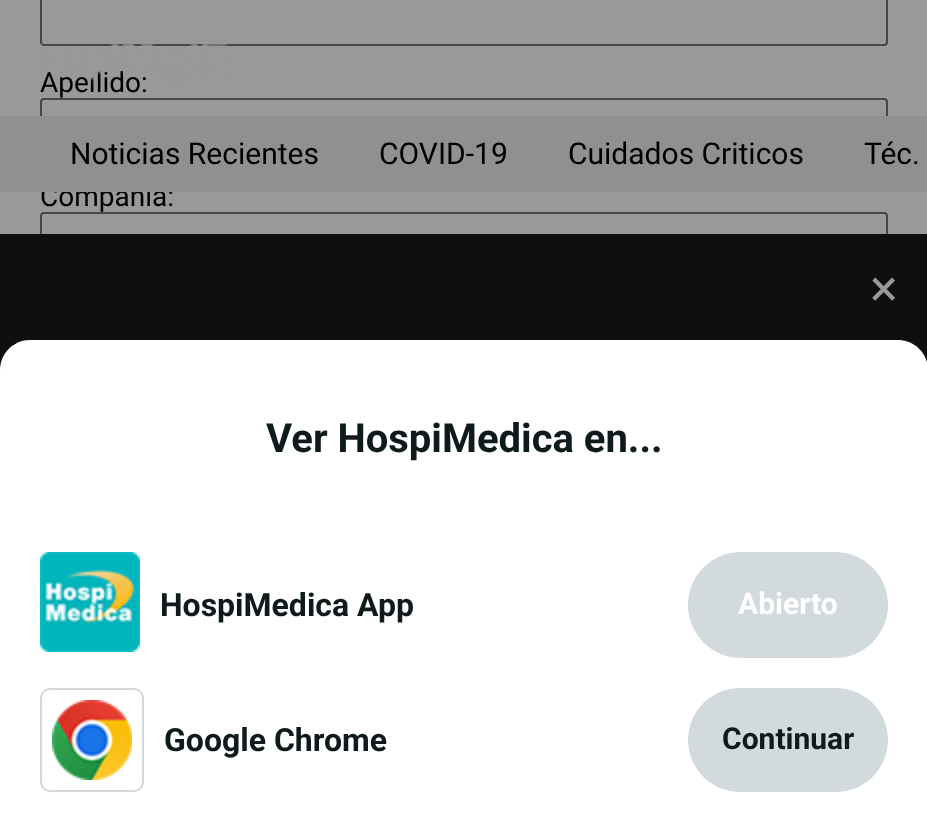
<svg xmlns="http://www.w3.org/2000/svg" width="927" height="832">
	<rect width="100%" height="100%" fill="#999999" />
	<rect x="41" y="-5" width="846" height="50" rx="3" fill="none" stroke="#474747" stroke-width="2" />
	<text x="40" y="92" font-family="Roboto" font-size="28" fill="#000000">Apellido:</text>
	<rect x="41" y="99" width="846" height="60" rx="3" fill="none" stroke="#474747" stroke-width="2" />
	<text x="40" y="206" font-family="Roboto" font-size="28" fill="#000000">Compañía:</text>
	<rect x="41" y="213" width="846" height="60" rx="3" fill="none" stroke="#474747" stroke-width="2" />
	<image x="40" y="43" width="189" height="42" href="assets/img1.png" />
	<rect x="0" y="116" width="927" height="76" fill="#909090" />
	<g font-family="Roboto" font-size="30" fill="#000000">
		<text x="70" y="164">Noticias Recientes</text>
		<text x="379" y="164">COVID-19</text>
		<text x="568" y="164">Cuidados Criticos</text>
		<text x="864" y="164">Téc.</text>
	</g>
	<rect x="0" y="234" width="927" height="136" fill="#0F0F0F" />
	<path d="M30 340H898C914.5 340 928 353.5 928 370V832H0V370C0 353.5 13.5 340 30 340Z" fill="#FFFFFF" />
	<text x="266" y="452" font-family="Roboto" font-size="40" font-weight="700" fill="#0F1A1C">Ver HospiMedica en...</text>
	<image x="40" y="552" width="100" height="100" href="assets/img2.png" />
	<text x="160" y="616" font-family="Roboto" font-size="32" font-weight="700" fill="#0F1A1C">HospiMedica App</text>
	<rect x="688" y="552" width="200" height="106" rx="53" fill="#D2DADD" />
	<text x="738" y="614" font-family="Roboto" font-size="30" font-weight="700" fill="#FFFFFF">Abierto</text>
	<rect x="41" y="689" width="102" height="102" rx="9" fill="none" stroke="#D2DADD" stroke-width="2" />
	<image x="52" y="700" width="80" height="80" href="assets/img3.png" />
	<text x="164" y="751" font-family="Roboto" font-size="32" font-weight="700" fill="#0F1A1C">Google Chrome</text>
	<rect x="688" y="688" width="200" height="104" rx="52" fill="#D2DADD" />
	<text x="722" y="749" font-family="Roboto" font-size="30" font-weight="700" fill="#0F1A1C">Continuar</text>
	<text x="870" y="306" font-family="Roboto" font-size="52" fill="#999999">×</text>
</svg>
